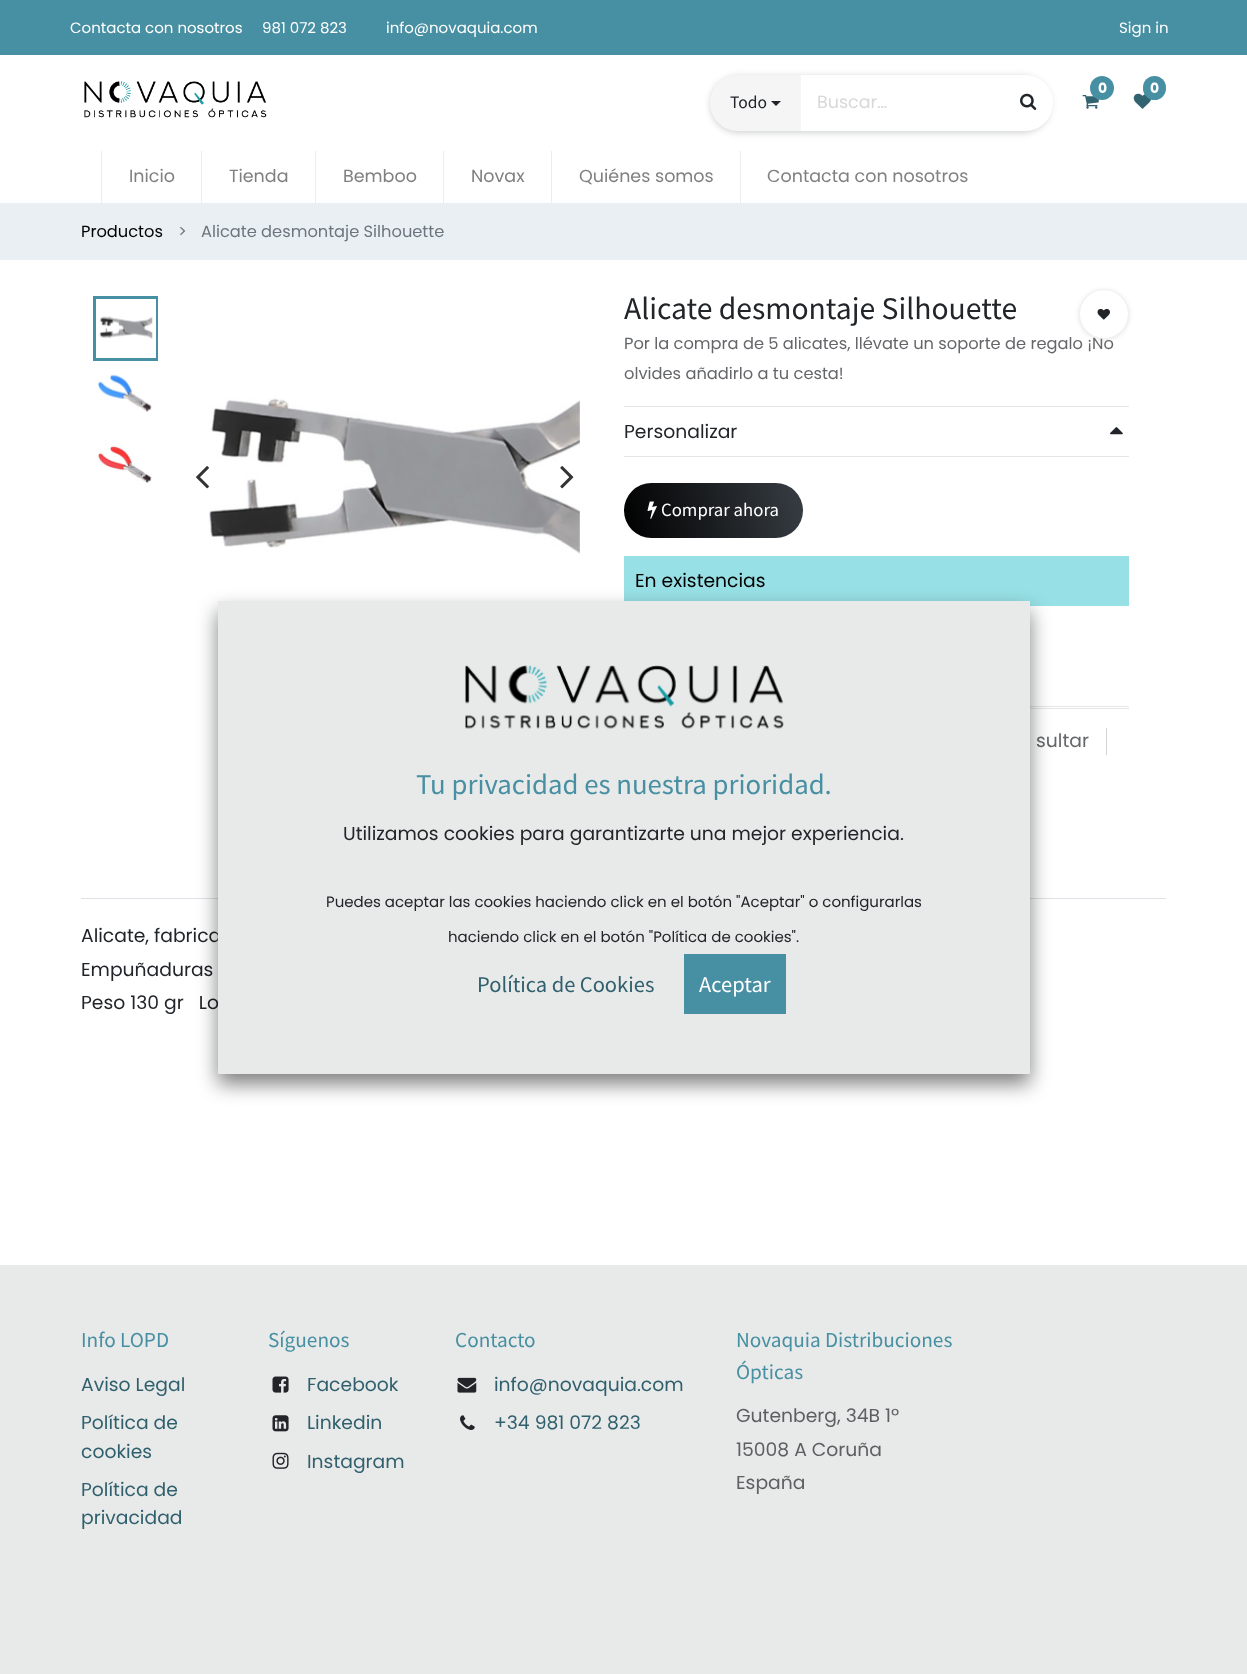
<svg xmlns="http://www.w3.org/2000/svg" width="1247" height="1674">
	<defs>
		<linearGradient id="g1" gradientUnits="userSpaceOnUse" x1="635" y1="579" x2="1149" y2="441"><stop offset="0" stop-color="#000000" /><stop offset="0.33" stop-color="#343A40" /><stop offset="0.67" stop-color="#343A40" /><stop offset="1" stop-color="#000000" /></linearGradient>
	</defs>
	<rect width="100%" height="100%" fill="#FFFFFF" />
	<rect x="0" y="0" width="1247" height="55" fill="#478FA2" />
	<g font-family="Poppins" font-size="15" fill="#FFFFFF">
		<text x="70" y="33">Contacta con nosotros</text>
		<text x="262" y="33">981 072 823</text>
		<text x="386" y="33">info@novaquia.com</text>
		<text x="1119" y="33">Sign in</text>
	</g>
	<image x="84" y="81" width="183" height="37" href="assets/img1.png" />
	<image x="1082" y="95" width="17" height="14" href="assets/img2.png" />
	<circle cx="1102" cy="88" r="12" fill="#478FA2" />
	<text x="1098" y="93" font-family="Poppins" font-size="14" font-weight="700" fill="#FFFFFF">0</text>
	<image x="1133" y="93" width="19" height="16" href="assets/img3.png" />
	<rect x="1143" y="76" width="23" height="24" rx="11.5" fill="#478FA2" />
	<text x="1150" y="93" font-family="Poppins" font-size="14" font-weight="700" fill="#FFFFFF">0</text>
	<rect x="710" y="76" width="341" height="57" rx="28.5" fill="#202124" fill-opacity="0.2" filter="blur(3px)" />
	<path d="M738 75H801V131H738C722.5 131 710 118.5 710 103C710 87.5 722.5 75 738 75Z" fill="#F5F5F5" />
	<text x="730" y="108" font-family="Source Sans Pro" font-size="17.5" fill="#212529">Todo</text>
	<path d="M771 101H781L776 106Z" fill="#212529" />
	<path d="M801 75H1025C1040.5 75 1053 87.5 1053 103C1053 118.5 1040.5 131 1025 131H801Z" fill="#FFFFFF" />
	<text x="817" y="108" font-family="Poppins" font-size="17.5" fill="#D8D8D8">Buscar…</text>
	<image x="1020" y="93" width="17" height="17" href="assets/img4.png" />
	<rect x="101" y="151" width="1" height="52" fill="#EDEDED" />
	<text x="129" y="182" font-family="Poppins" font-size="17.5" fill="#808080">Inicio</text>
	<rect x="201" y="151" width="1" height="52" fill="#EDEDED" />
	<text x="229" y="182" font-family="Poppins" font-size="17.5" fill="#808080">Tienda</text>
	<rect x="315" y="151" width="1" height="52" fill="#EDEDED" />
	<text x="343" y="182" font-family="Poppins" font-size="17.5" fill="#808080">Bemboo</text>
	<rect x="443" y="151" width="1" height="52" fill="#EDEDED" />
	<text x="471" y="182" font-family="Poppins" font-size="17.5" fill="#808080">Novax</text>
	<rect x="551" y="151" width="1" height="52" fill="#EDEDED" />
	<text x="579" y="182" font-family="Poppins" font-size="17.5" fill="#808080">Quiénes somos</text>
	<rect x="740" y="151" width="1" height="52" fill="#EDEDED" />
	<text x="767" y="182" font-family="Poppins" font-size="17.5" fill="#808080">Contacta con nosotros</text>
	<rect x="0" y="203" width="1247" height="57" fill="#EAEFF3" />
	<text x="81" y="237" font-family="Poppins" font-size="16.25" fill="#000000">Productos</text>
	<g font-family="Poppins" font-size="16.25" fill="#6C757D">
		<text x="178" y="237">&gt;</text>
		<text x="201" y="237">Alicate desmontaje Silhouette</text>
	</g>
	<path d="M158 296V361H93V296ZM96 299V358H156V299Z" fill="#478FA2" fill-rule="evenodd" />
	<image x="99" y="316" width="54" height="23" href="assets/img5.png" />
	<image x="97" y="374" width="55" height="38" href="assets/img6.png" />
	<image x="97" y="443" width="55" height="41" href="assets/img7.png" />
	<image x="209" y="398" width="371" height="156" href="assets/img8.png" />
	<image x="196" y="466" width="13" height="23" href="assets/img9.png" />
	<image x="560" y="466" width="14" height="23" href="assets/img10.png" />
	<text x="624" y="319" font-family="Source Sans Pro" font-size="31.6" fill="#212529">Alicate desmontaje Silhouette</text>
	<rect x="1079" y="290" width="50" height="50" rx="25" fill="#000000" fill-opacity="0.1" filter="blur(2.5px)" />
	<text x="624" y="349" font-family="Poppins" font-size="16.25" fill="#646669">Por la compra de 5 alicates, llévate un soporte de regalo ¡No</text>
	<circle cx="1104" cy="314" r="24.5" fill="#FFFFFF" stroke="#F0F0F0" />
	<image x="1097" y="308" width="13" height="12" href="assets/img11.png" />
	<text x="624" y="379" font-family="Poppins" font-size="16.25" fill="#646669">olvides añadirlo a tu cesta!</text>
	<rect x="624" y="406" width="505" height="1" fill="#E6E6E6" />
	<text x="624" y="438" font-family="Poppins" font-size="18.75" fill="#212529">Personalizar</text>
	<image x="1110" y="427" width="13" height="8" href="assets/img12.png" />
	<rect x="624" y="456" width="505" height="1" fill="#E6E6E6" />
	<rect x="624" y="483" width="179" height="55" rx="27.5" fill="url(#g1)" />
	<image x="647" y="501" width="10" height="18" href="assets/img13.png" />
	<text x="661" y="516" font-family="Source Sans Pro" font-size="18.75" fill="#FFFFFF">Comprar ahora</text>
	<rect x="624" y="556" width="505" height="50" fill="#97E0E5" />
	<text x="635" y="587" font-family="Poppins" font-size="18.75" fill="#000000">En existencias</text>
	<rect x="1030" y="706" width="99" height="1" fill="#E6E6E6" />
	<rect x="1030" y="708" width="99" height="1" fill="#E6E6E6" />
	<rect x="1106" y="728" width="1" height="27" fill="#D3D3D3" />
	<text x="1036" y="747" font-family="Poppins" font-size="18.75" fill="#646669">sultar</text>
	<rect x="81" y="898" width="1085" height="1" fill="#DEE2E6" />
	<g font-family="Poppins" font-size="18.75" fill="#212529">
		<text x="81" y="942">Alicate, fabrica</text>
		<text x="81" y="976">Empuñaduras</text>
		<text x="81" y="1009" xml:space="preserve">Peso 130 gr   Lo</text>
	</g>
	<rect x="218" y="611" width="812" height="473" fill="#000000" fill-opacity="0.5" filter="blur(10px)" />
	<rect x="218" y="601" width="812" height="473" fill="#E8E9E9" />
	<image x="465" y="665" width="319" height="64" href="assets/img14.png" />
	<text x="416" y="794" font-family="Source Sans Pro" font-size="28.75" fill="#478FA2">Tu privacidad es nuestra prioridad.</text>
	<text x="343" y="840" font-family="Poppins" font-size="18.75" fill="#212529">Utilizamos cookies para garantizarte una mejor experiencia.</text>
	<g font-family="Poppins" font-size="15" fill="#212529">
		<text x="326" y="907">Puedes aceptar las cookies haciendo click en el botón "Aceptar" o configurarlas</text>
		<text x="448" y="942">haciendo click en el botón "Política de cookies".</text>
	</g>
	<text x="477" y="992" font-family="Source Sans Pro" font-size="22.5" fill="#30606D">Política de Cookies</text>
	<rect x="684" y="954" width="102" height="60" fill="#478FA2" />
	<text x="699" y="992" font-family="Source Sans Pro" font-size="22.5" fill="#FFFFFF">Aceptar</text>
	<rect x="0" y="1265" width="1247" height="409" fill="#E8E9E9" />
	<text x="81" y="1347" font-family="Source Sans Pro" font-size="21.25" fill="#478FA2">Info LOPD</text>
	<g font-family="Poppins" font-size="18.75" fill="#30606D">
		<text x="81" y="1391">Aviso Legal</text>
		<text x="81" y="1429">Política de</text>
		<text x="81" y="1458">cookies</text>
		<text x="81" y="1496">Política de</text>
		<text x="81" y="1524">privacidad</text>
	</g>
	<text x="268" y="1347" font-family="Source Sans Pro" font-size="21.25" fill="#478FA2">Síguenos</text>
	<image x="272" y="1376" width="17" height="17" href="assets/img15.png" />
	<text x="307" y="1391" font-family="Poppins" font-size="18.75" fill="#30606D">Facebook</text>
	<image x="272" y="1415" width="17" height="17" href="assets/img16.png" />
	<text x="307" y="1429" font-family="Poppins" font-size="18.75" fill="#30606D">Linkedin</text>
	<image x="272" y="1452" width="17" height="17" href="assets/img17.png" />
	<text x="307" y="1468" font-family="Poppins" font-size="18.75" fill="#30606D">Instagram</text>
	<text x="455" y="1347" font-family="Source Sans Pro" font-size="21.25" fill="#478FA2">Contacto</text>
	<image x="457" y="1377" width="20" height="16" href="assets/img18.png" />
	<text x="494" y="1391" font-family="Poppins" font-size="18.75" fill="#30606D">info@novaquia.com</text>
	<image x="460" y="1415" width="15" height="15" href="assets/img19.png" />
	<text x="494" y="1429" font-family="Poppins" font-size="18.75" fill="#30606D">+34 981 072 823</text>
	<g font-family="Source Sans Pro" font-size="21.25" fill="#478FA2">
		<text x="736" y="1347">Novaquia Distribuciones</text>
		<text x="736" y="1379">Ópticas</text>
	</g>
	<g font-family="Poppins" font-size="18.75" fill="#5D6063">
		<text x="736" y="1422">Gutenberg, 34B 1º</text>
		<text x="736" y="1456">15008 A Coruña</text>
		<text x="736" y="1489">España</text>
	</g>
</svg>
